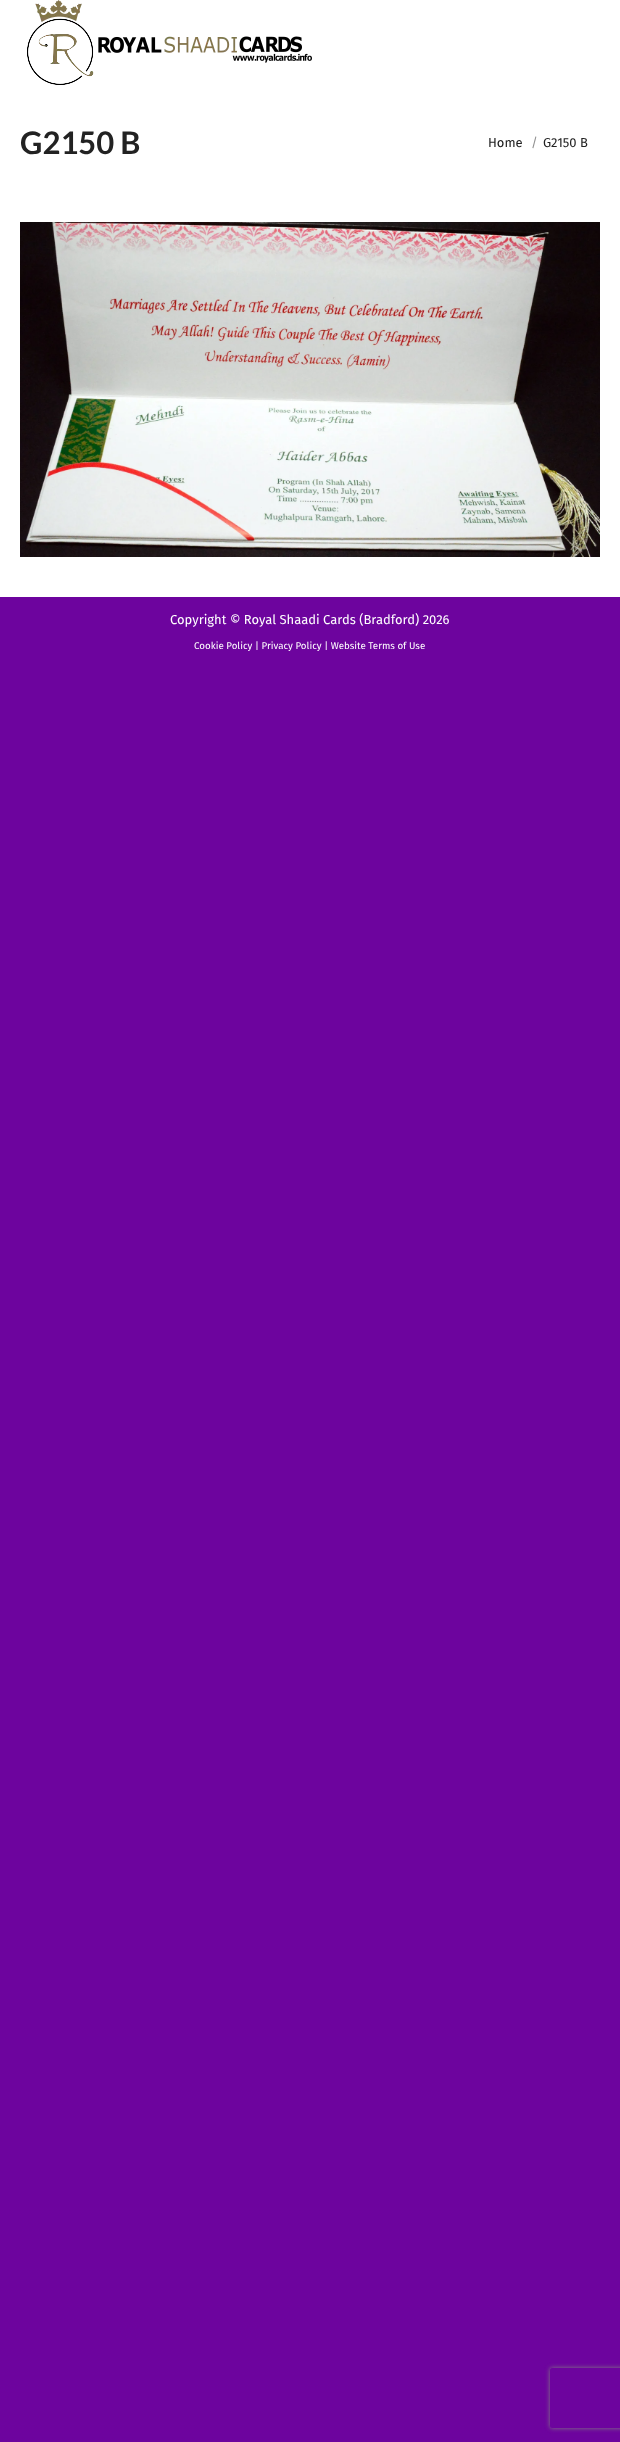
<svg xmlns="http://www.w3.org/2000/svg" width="620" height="2442">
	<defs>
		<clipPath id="clip1"><path d="M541 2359H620V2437H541ZM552 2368H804C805 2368 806 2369 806 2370V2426C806 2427 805 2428 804 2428H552C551 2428 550 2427 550 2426V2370C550 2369 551 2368 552 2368Z" clip-rule="evenodd" /></clipPath>
	</defs>
	<rect width="100%" height="100%" fill="#6D049E" />
	<rect x="0" y="0" width="620" height="597" fill="#FFFFFF" />
	<image x="27" y="0" width="285" height="85" href="assets/img1.png" />
	<text x="20" y="154" font-family="Lato" font-size="31" font-weight="700" fill="#222222">G2150 B</text>
	<text x="488" y="147" font-family="Fira Sans" font-size="13" fill="#222222">Home</text>
	<text x="531" y="147" font-family="Fira Sans" font-size="13" fill="#919191">/</text>
	<text x="543" y="147" font-family="Fira Sans" font-size="13" fill="#222222">G2150 B</text>
	<image x="20" y="222" width="580" height="335" href="assets/img2.png" />
	<text x="170" y="624" font-family="Fira Sans" font-size="13" fill="#FFFFFF">Copyright © Royal Shaadi Cards (Bradford) 2026</text>
	<text x="194" y="649" font-family="Fira Sans" font-size="9.75" fill="#FFFFFF">Cookie Policy | Privacy Policy | Website Terms of Use</text>
	<g clip-path="url(#clip1)">
		<rect x="550" y="2368" width="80" height="60" rx="2" fill="#808080" filter="blur(2.5px)" />
	</g>
</svg>
